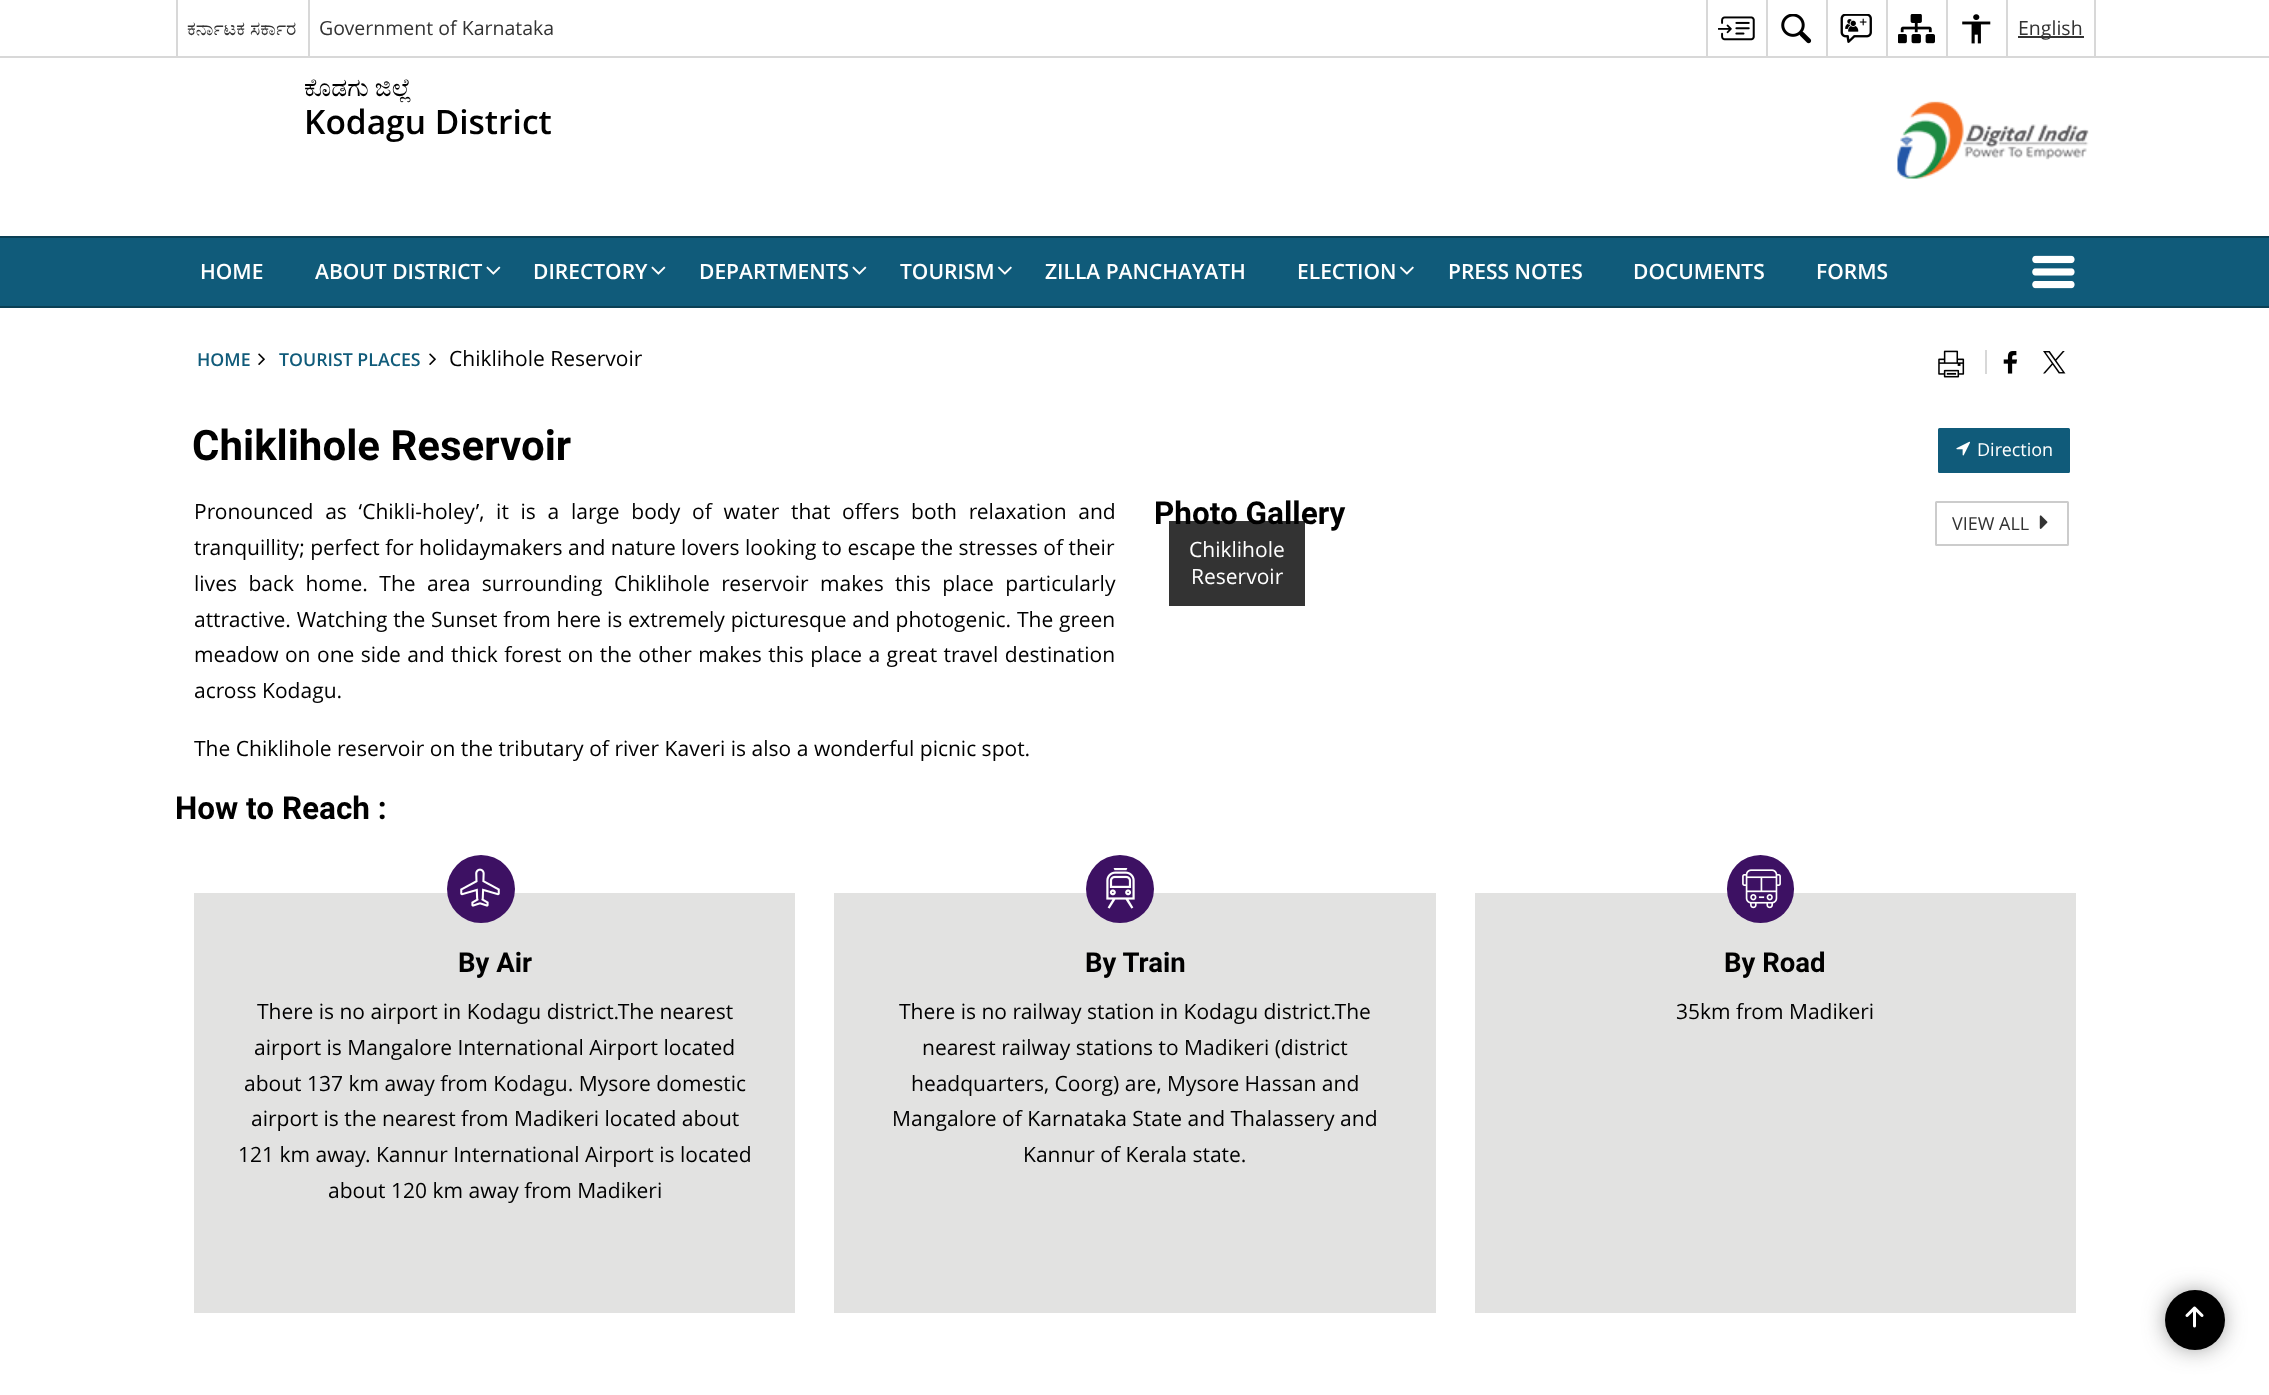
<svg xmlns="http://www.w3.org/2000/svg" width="2269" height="1395">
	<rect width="100%" height="100%" fill="#FFFFFF" />
	<rect x="0" y="56" width="2269" height="2" fill="#D8D8D8" />
	<rect x="176" y="0" width="2" height="56" fill="#D8D8D8" />
	<text x="187" y="35" font-family="FreeSerif" font-size="19.5" fill="#333333">ಕರ್ನಾಟಕ ಸರ್ಕಾರ</text>
	<rect x="308" y="0" width="2" height="56" fill="#D8D8D8" />
	<text x="319" y="35" font-family="Open Sans" font-size="19.5" fill="#333333">Government of Karnataka</text>
	<rect x="1706" y="0" width="2" height="56" fill="#D8D8D8" />
	<image x="1718" y="16" width="37" height="25" href="assets/img1.png" />
	<rect x="1766" y="0" width="2" height="56" fill="#D8D8D8" />
	<image x="1781" y="14" width="31" height="30" href="assets/img2.png" />
	<rect x="1826" y="0" width="2" height="56" fill="#D8D8D8" />
	<image x="1840" y="14" width="32" height="29" href="assets/img3.png" />
	<rect x="1886" y="0" width="2" height="56" fill="#D8D8D8" />
	<image x="1898" y="14" width="37" height="30" href="assets/img4.png" />
	<rect x="1946" y="0" width="2" height="56" fill="#D8D8D8" />
	<image x="1962" y="14" width="29" height="30" href="assets/img5.png" />
	<rect x="2094" y="0" width="2" height="56" fill="#D8D8D8" />
	<rect x="2006" y="0" width="2" height="56" fill="#D8D8D8" />
	<rect x="2018" y="36" width="66" height="2" fill="#333333" />
	<text x="2018" y="35" font-family="Open Sans" font-size="19.5" fill="#333333">English</text>
	<text x="304" y="96" font-family="FreeSerif" font-size="25" fill="#000000">ಕೊಡಗು ಜಿಲ್ಲೆ</text>
	<text x="304" y="134" font-family="Open Sans" font-size="33.5" font-weight="600" fill="#000000">Kodagu District</text>
	<image x="1897" y="101" width="192" height="78" href="assets/img6.png" />
	<rect x="0" y="238" width="2269" height="68" fill="#105B7A" />
	<rect x="0" y="236" width="2269" height="2" fill="#0B4055" />
	<rect x="0" y="306" width="2269" height="2" fill="#0B4055" />
	<g font-family="Open Sans" font-size="21" font-weight="600" fill="#FFFFFF">
		<text x="200" y="279">HOME</text>
		<text x="315" y="279">ABOUT DISTRICT</text>
	</g>
	<image x="486" y="266" width="15" height="9" href="assets/img7.png" />
	<text x="533" y="279" font-family="Open Sans" font-size="21" font-weight="600" fill="#FFFFFF">DIRECTORY</text>
	<image x="651" y="266" width="15" height="9" href="assets/img7.png" />
	<text x="699" y="279" font-family="Open Sans" font-size="21" font-weight="600" fill="#FFFFFF">DEPARTMENTS</text>
	<image x="852" y="266" width="15" height="9" href="assets/img7.png" />
	<text x="900" y="279" font-family="Open Sans" font-size="21" font-weight="600" fill="#FFFFFF">TOURISM</text>
	<image x="997" y="266" width="15" height="9" href="assets/img8.png" />
	<g font-family="Open Sans" font-size="21" font-weight="600" fill="#FFFFFF">
		<text x="1045" y="279">ZILLA PANCHAYATH</text>
		<text x="1297" y="279">ELECTION</text>
	</g>
	<image x="1399" y="266" width="15" height="9" href="assets/img8.png" />
	<g font-family="Open Sans" font-size="21" font-weight="600" fill="#FFFFFF">
		<text x="1448" y="279">PRESS NOTES</text>
		<text x="1633" y="279">DOCUMENTS</text>
		<text x="1816" y="279">FORMS</text>
	</g>
	<image x="2032" y="255" width="43" height="34" href="assets/img9.png" />
	<text x="197" y="366" font-family="Open Sans" font-size="17.75" font-weight="600" fill="#105B7A">HOME</text>
	<image x="258" y="353" width="7" height="12" href="assets/img10.png" />
	<text x="279" y="366" font-family="Open Sans" font-size="17.75" font-weight="600" fill="#105B7A">TOURIST PLACES</text>
	<image x="429" y="353" width="7" height="12" href="assets/img10.png" />
	<text x="449" y="366" font-family="Open Sans" font-size="21" fill="#000000">Chiklihole Reservoir</text>
	<image x="1938" y="350" width="27" height="28" href="assets/img11.png" />
	<rect x="1985" y="350" width="2" height="24" fill="#D8D8D8" />
	<image x="2003" y="351" width="14" height="23" href="assets/img12.png" />
	<image x="2043" y="351" width="23" height="23" href="assets/img13.png" />
	<text x="192" y="460" font-family="Roboto" font-size="42" font-weight="700" fill="#000000">Chiklihole Reservoir</text>
	<rect x="1939" y="429" width="130" height="43" rx="0.5" fill="#105B7A" stroke="#105B7A" stroke-width="2" />
	<image x="1956" y="441" width="14" height="15" href="assets/img14.png" />
	<text x="1977" y="456" font-family="Open Sans" font-size="18" fill="#FFFFFF">Direction</text>
	<g font-family="Open Sans" font-size="21" fill="#000000">
		<text x="194" y="519" word-spacing="6.25">Pronounced as ‘Chikli-holey’, it is a large body of water that offers both relaxation and</text>
		<text x="194" y="555">tranquillity; perfect for holidaymakers and nature lovers looking to escape the stresses of their</text>
		<text x="194" y="591" word-spacing="6">lives back home. The area surrounding Chiklihole reservoir makes this place particularly</text>
		<text x="194" y="627" word-spacing="0.3">attractive. Watching the Sunset from here is extremely picturesque and photogenic. The green</text>
		<text x="194" y="662" word-spacing="1">meadow on one side and thick forest on the other makes this place a great travel destination</text>
		<text x="194" y="698">across Kodagu.</text>
		<text x="194" y="756">The Chiklihole reservoir on the tributary of river Kaveri is also a wonderful picnic spot.</text>
	</g>
	<text x="1154" y="524" font-family="Roboto" font-size="31.5" font-weight="700" fill="#000000">Photo Gallery</text>
	<rect x="1936" y="502" width="132" height="43" rx="0.5" fill="none" stroke="#CCCCCC" stroke-width="2" />
	<text x="1952" y="530" font-family="Open Sans" font-size="18" fill="#333333">VIEW ALL</text>
	<image x="2039" y="515" width="9" height="14" href="assets/img15.png" />
	<rect x="1169" y="521" width="136" height="85" fill="#000000" fill-opacity="0.8" />
	<g font-family="Open Sans" font-size="21" fill="#FFFFFF">
		<text x="1189" y="557">Chiklihole</text>
		<text x="1191" y="584">Reservoir</text>
	</g>
	<text x="175" y="819" font-family="Roboto" font-size="31.5" font-weight="700" fill="#000000">How to Reach :</text>
	<rect x="194" y="893" width="601" height="420" fill="#E2E2E1" />
	<circle cx="481" cy="889" r="34" fill="#3D1163" />
	<image x="460" y="868" width="40" height="39" href="assets/img16.png" />
	<text x="458" y="972" font-family="Roboto" font-size="27.5" font-weight="700" fill="#000000">By Air</text>
	<g font-family="Open Sans" font-size="21" fill="#000000">
		<text x="257" y="1019">There is no airport in Kodagu district.The nearest</text>
		<text x="254" y="1055">airport is Mangalore International Airport located</text>
		<text x="244" y="1091">about 137 km away from Kodagu. Mysore domestic</text>
		<text x="251" y="1126">airport is the nearest from Madikeri located about</text>
		<text x="238" y="1162">121 km away. Kannur International Airport is located</text>
		<text x="328" y="1198">about 120 km away from Madikeri</text>
	</g>
	<rect x="834" y="893" width="602" height="420" fill="#E2E2E1" />
	<circle cx="1120" cy="889" r="34" fill="#3D1163" />
	<image x="1106" y="868" width="29" height="41" href="assets/img17.png" />
	<text x="1085" y="972" font-family="Roboto" font-size="27.5" font-weight="700" fill="#000000">By Train</text>
	<g font-family="Open Sans" font-size="21" fill="#000000">
		<text x="899" y="1019">There is no railway station in Kodagu district.The</text>
		<text x="922" y="1055">nearest railway stations to Madikeri (district</text>
		<text x="911" y="1091">headquarters, Coorg) are, Mysore Hassan and</text>
		<text x="892" y="1126">Mangalore of Karnataka State and Thalassery and</text>
		<text x="1023" y="1162">Kannur of Kerala state.</text>
	</g>
	<rect x="1475" y="893" width="601" height="420" fill="#E2E2E1" />
	<rect x="1727" y="855" width="67" height="68" rx="33.5" fill="#3D1163" />
	<image x="1742" y="869" width="39" height="40" href="assets/img18.png" />
	<text x="1724" y="972" font-family="Roboto" font-size="27.5" font-weight="700" fill="#000000">By Road</text>
	<text x="1676" y="1019" font-family="Open Sans" font-size="21" fill="#000000">35km from Madikeri</text>
	<rect x="2172" y="1298" width="45" height="45" rx="22.5" fill="#3C3C3C" filter="blur(14px)" />
	<circle cx="2195" cy="1320" r="30" fill="#000000" />
	<image x="2185" y="1306" width="19" height="22" href="assets/img19.png" />
</svg>
